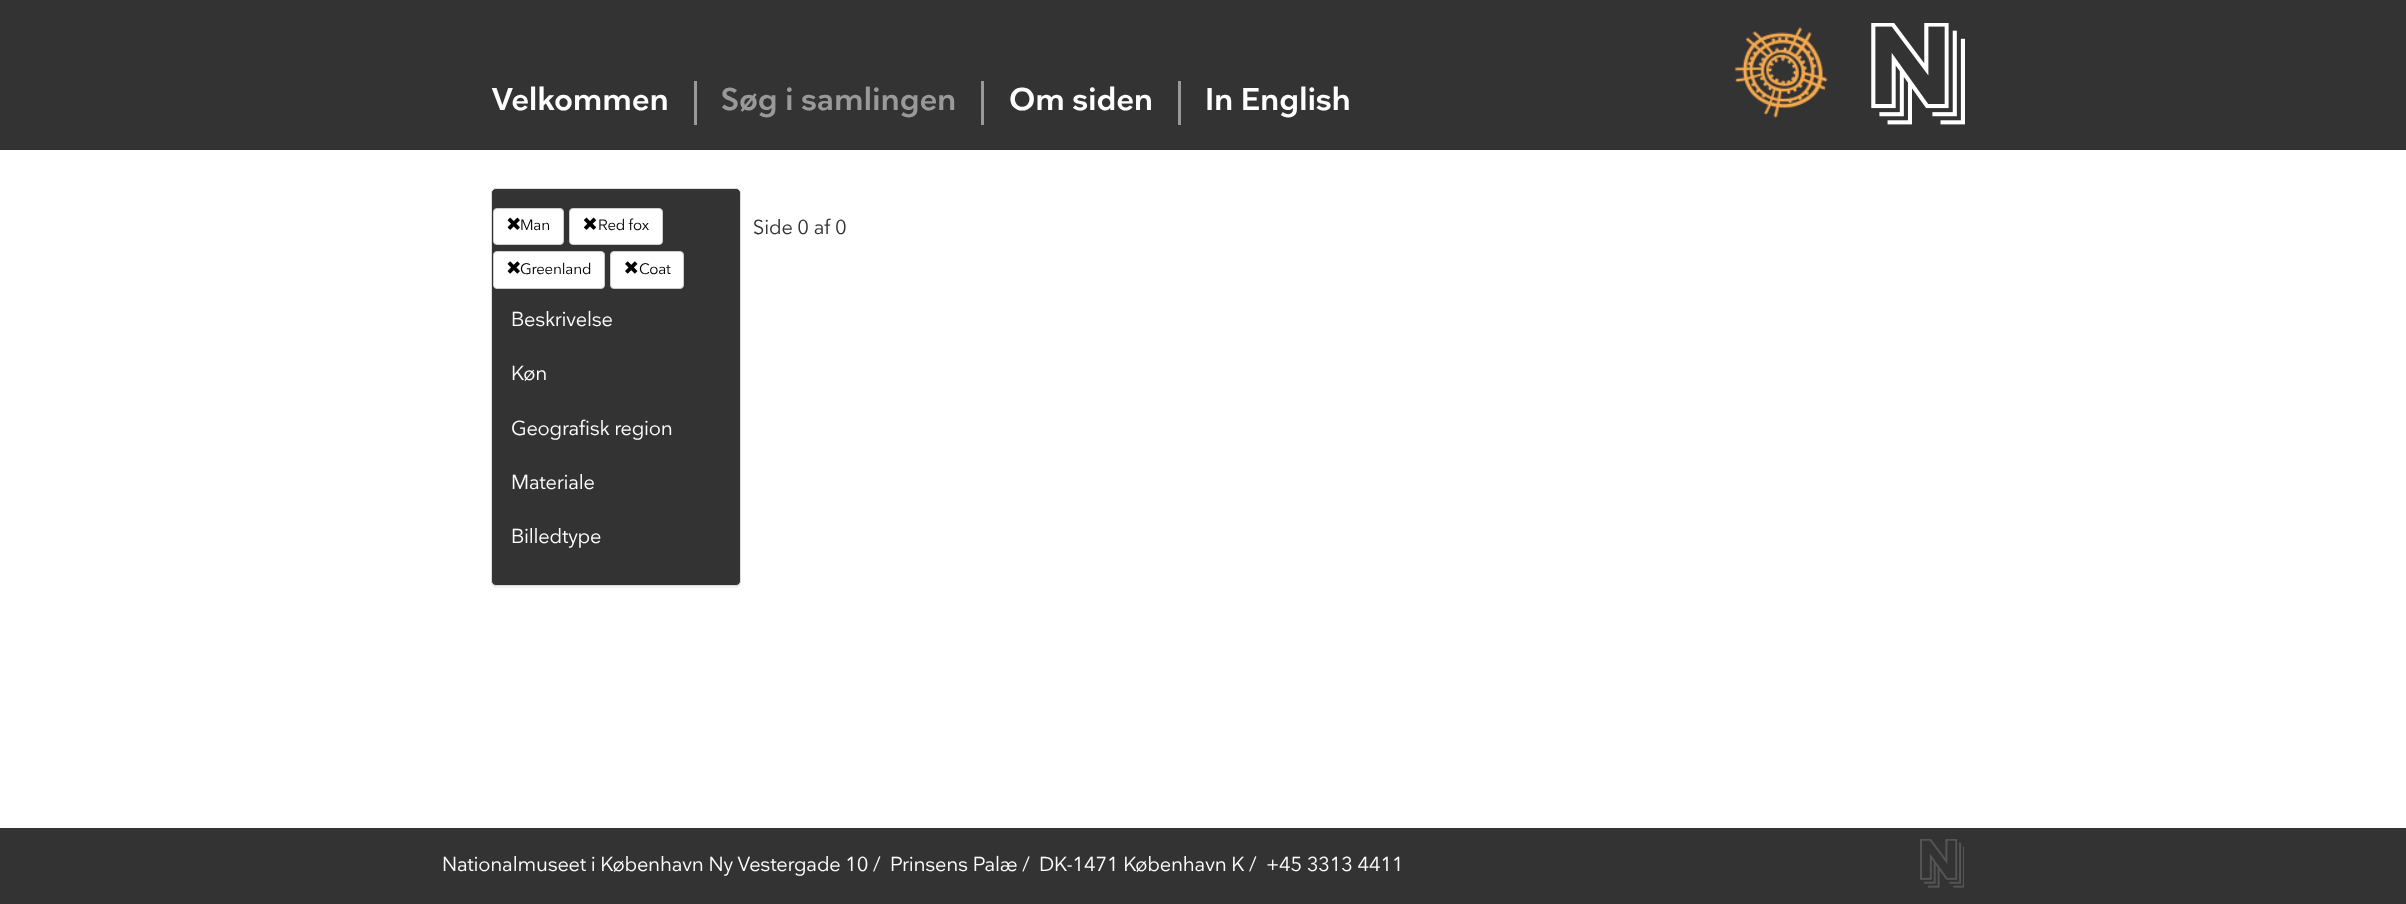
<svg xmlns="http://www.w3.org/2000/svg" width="2406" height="904">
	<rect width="100%" height="100%" fill="#FFFFFF" />
	<rect x="0" y="0" width="2406" height="150" fill="#333333" />
	<rect x="694" y="81" width="3" height="44" fill="#999999" />
	<text x="492" y="110" font-family="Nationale" font-size="31" font-weight="600" letter-spacing="-0.2" fill="#FFFFFF">Velkommen</text>
	<rect x="981" y="81" width="3" height="44" fill="#999999" />
	<text x="721" y="110" font-family="Nationale" font-size="31" font-weight="600" letter-spacing="-0.2" fill="#999999">Søg i samlingen</text>
	<rect x="1178" y="81" width="3" height="44" fill="#999999" />
	<g font-family="Nationale" font-size="31" font-weight="600" letter-spacing="-0.2" fill="#FFFFFF">
		<text x="1009" y="110">Om siden</text>
		<text x="1205" y="110">In English</text>
	</g>
	<image x="1734" y="27" width="94" height="91" href="assets/img1.png" />
	<image x="1871" y="23" width="94" height="102" href="assets/img2.png" />
	<rect x="491" y="189" width="250" height="399" rx="5" fill="#000000" fill-opacity="0.05" filter="blur(0.5px)" />
	<rect x="491.5" y="188.5" width="249" height="397" rx="4.5" fill="#333333" stroke="#DDDDDD" />
	<rect x="493.5" y="208.5" width="70" height="36" rx="3.5" fill="#FFFFFF" stroke="#CCCCCC" />
	<image x="507" y="217" width="13" height="13" href="assets/img3.png" />
	<text x="520" y="230" font-family="Nationale" font-size="15" letter-spacing="-0.2" fill="#000000">Man</text>
	<rect x="569.5" y="208.5" width="93" height="36" rx="3.5" fill="#FFFFFF" stroke="#CCCCCC" />
	<image x="583" y="217" width="14" height="13" href="assets/img4.png" />
	<text x="598" y="230" font-family="Nationale" font-size="15" letter-spacing="-0.2" fill="#000000">Red fox</text>
	<rect x="493.5" y="251.5" width="111" height="37" rx="3.5" fill="#FFFFFF" stroke="#CCCCCC" />
	<image x="507" y="261" width="13" height="13" href="assets/img5.png" />
	<text x="520" y="274" font-family="Nationale" font-size="15" letter-spacing="-0.2" fill="#000000">Greenland</text>
	<rect x="610.5" y="251.5" width="73" height="37" rx="3.5" fill="#FFFFFF" stroke="#CCCCCC" />
	<image x="625" y="261" width="13" height="13" href="assets/img6.png" />
	<text x="639" y="274" font-family="Nationale" font-size="15" letter-spacing="-0.2" fill="#000000">Coat</text>
	<g font-family="Nationale" font-size="20" letter-spacing="-0.2" fill="#FFFFFF">
		<text x="511" y="326">Beskrivelse</text>
		<text x="511" y="380">Køn</text>
		<text x="511" y="435">Geografisk region</text>
		<text x="511" y="489">Materiale</text>
		<text x="511" y="543">Billedtype</text>
	</g>
	<text x="753" y="234" font-family="Nationale" font-size="20" letter-spacing="-0.2" fill="#333333">Side 0 af 0</text>
	<rect x="0" y="828" width="2406" height="76" fill="#333333" />
	<g font-family="Nationale" font-size="20" letter-spacing="-0.2" fill="#FFFFFF">
		<text x="442" y="871">Nationalmuseet i København Ny Vestergade 10 /</text>
		<text x="890" y="871">Prinsens Palæ /</text>
		<text x="1039" y="871">DK-1471 København K /</text>
		<text x="1266" y="871">+45 3313 4411</text>
	</g>
	<image x="1920" y="839" width="44" height="49" href="assets/img7.png" />
</svg>
